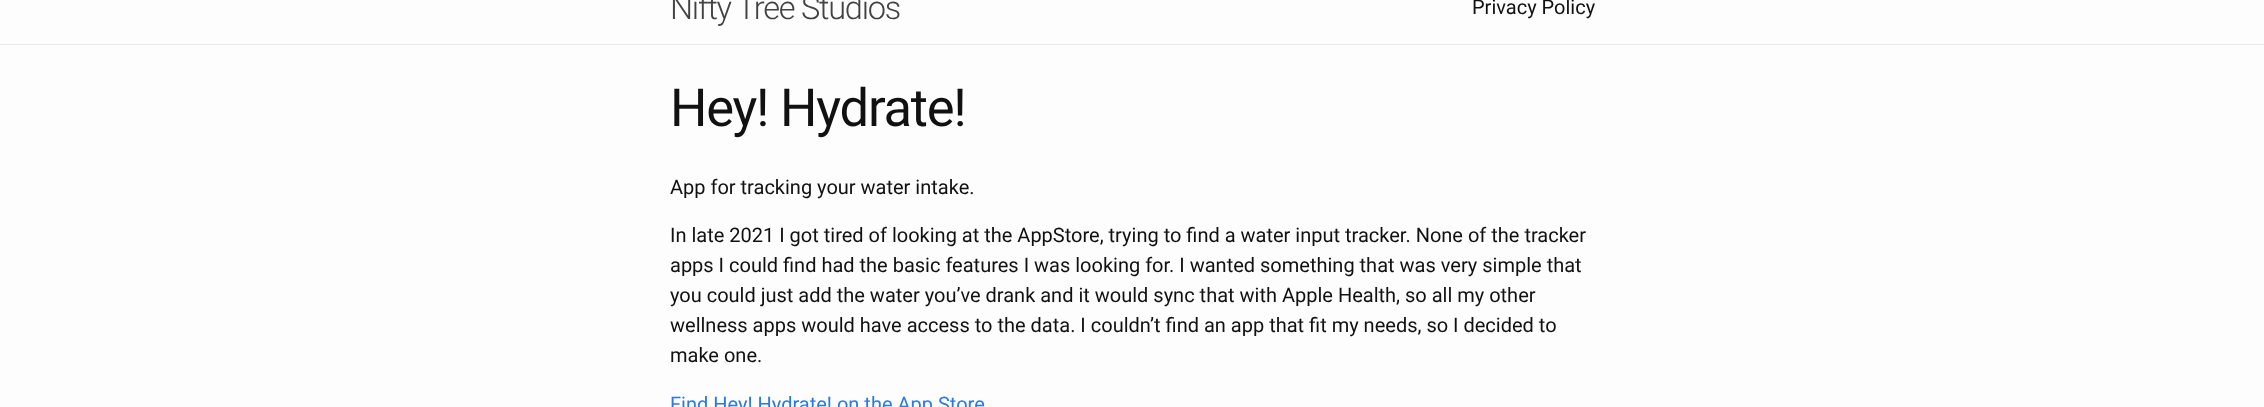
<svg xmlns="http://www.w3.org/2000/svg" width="2264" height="407">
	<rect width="100%" height="100%" fill="#FDFDFD" />
	<rect x="0" y="44" width="2264" height="1" fill="#E8E8E8" />
	<text x="670" y="19" font-family="Roboto" font-size="32.5" font-weight="300" letter-spacing="-1.25" fill="#424242">Nifty Tree Studios</text>
	<text x="1472" y="14" font-family="Roboto" font-size="20" fill="#111111">Privacy Policy</text>
	<text x="670" y="126" font-family="Roboto" font-size="52.5" letter-spacing="-1.25" fill="#111111">Hey! Hydrate!</text>
	<g font-family="Roboto" font-size="20" fill="#111111">
		<text x="670" y="194">App for tracking your water intake.</text>
		<text x="670" y="242">In late 2021 I got tired of looking at the AppStore, trying to find a water input tracker. None of the tracker</text>
		<text x="670" y="272">apps I could find had the basic features I was looking for. I wanted something that was very simple that</text>
		<text x="670" y="302">you could just add the water you’ve drank and it would sync that with Apple Health, so all my other</text>
		<text x="670" y="332">wellness apps would have access to the data. I couldn’t find an app that fit my needs, so I decided to</text>
		<text x="670" y="362">make one.</text>
	</g>
	<text x="670" y="411" font-family="Roboto" font-size="20" fill="#2A7AE2">Find Hey! Hydrate! on the App Store</text>
</svg>
